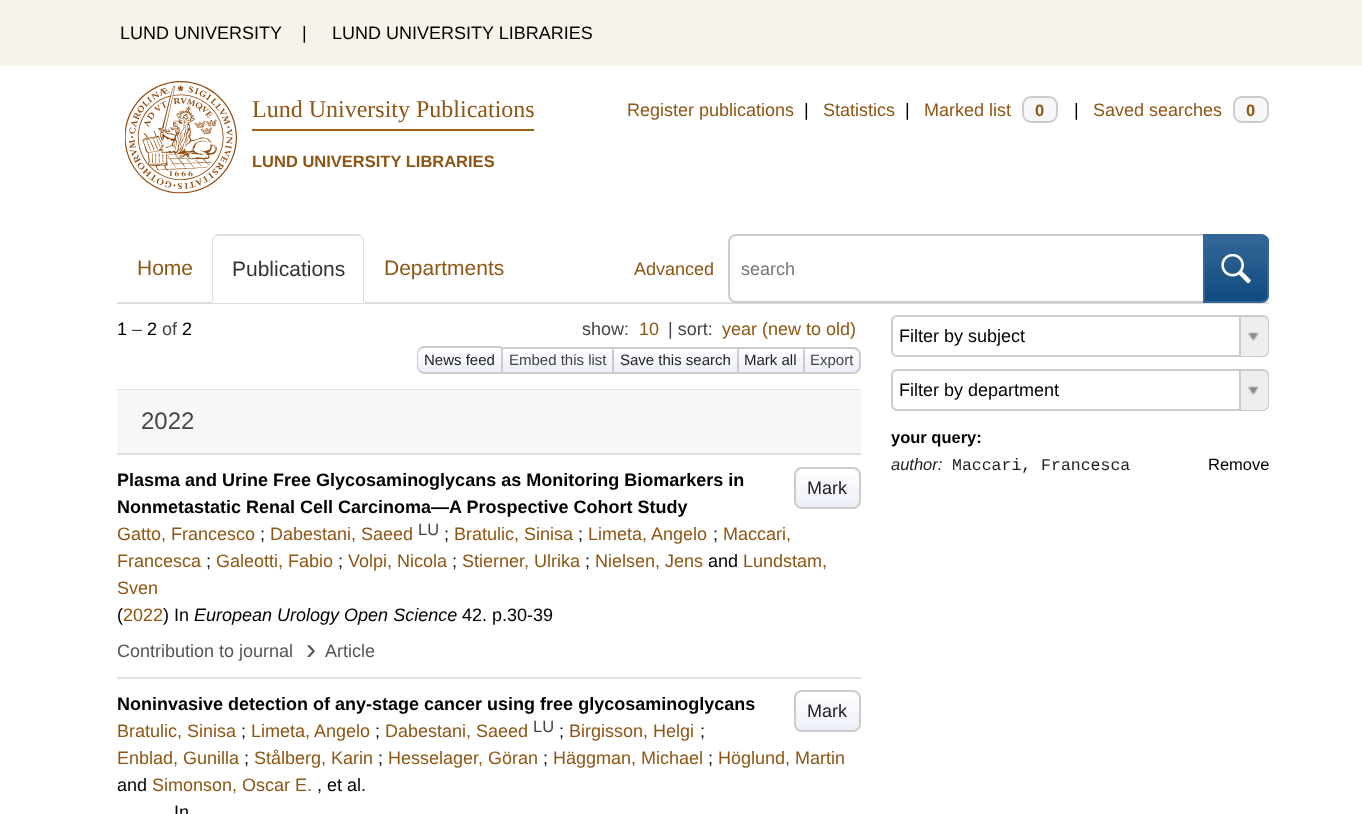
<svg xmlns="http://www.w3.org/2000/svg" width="1362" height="814">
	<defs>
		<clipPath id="clip1"><path d="M1203 234H1261C1265.5 234 1269 237.5 1269 242V295C1269 299.5 1265.5 303 1261 303H1203Z" /></clipPath>
		<linearGradient id="g1" gradientUnits="userSpaceOnUse" x1="1236" y1="236" x2="1236" y2="302"><stop offset="0" stop-color="#336699" /><stop offset="1" stop-color="#104B7D" /></linearGradient>
		<clipPath id="clip2"><path d="M425 347H501V374H425C420.5 374 417 370.5 417 366V355C417 350.5 420.5 347 425 347Z" /></clipPath>
		<linearGradient id="g2" gradientUnits="userSpaceOnUse" x1="460" y1="348" x2="460" y2="372"><stop offset="0" stop-color="#FFFFFF" /><stop offset="1" stop-color="#ECEFF8" /></linearGradient>
		<linearGradient id="g3" gradientUnits="userSpaceOnUse" x1="557" y1="348" x2="557" y2="372"><stop offset="0" stop-color="#FFFFFF" /><stop offset="1" stop-color="#ECEFF8" /></linearGradient>
		<linearGradient id="g4" gradientUnits="userSpaceOnUse" x1="675" y1="348" x2="675" y2="372"><stop offset="0" stop-color="#FFFFFF" /><stop offset="1" stop-color="#ECEFF8" /></linearGradient>
		<linearGradient id="g5" gradientUnits="userSpaceOnUse" x1="770" y1="348" x2="770" y2="372"><stop offset="0" stop-color="#FFFFFF" /><stop offset="1" stop-color="#ECEFF8" /></linearGradient>
		<clipPath id="clip3"><path d="M803 347H853C857.5 347 861 350.5 861 355V366C861 370.5 857.5 374 853 374H803Z" /></clipPath>
		<linearGradient id="g6" gradientUnits="userSpaceOnUse" x1="832" y1="348" x2="832" y2="372"><stop offset="0" stop-color="#FFFFFF" /><stop offset="1" stop-color="#ECEFF8" /></linearGradient>
		<clipPath id="clip4"><rect x="794" y="467" width="67" height="42" rx="8" /></clipPath>
		<linearGradient id="g7" gradientUnits="userSpaceOnUse" x1="827" y1="468" x2="827" y2="507"><stop offset="0" stop-color="#FFFFFF" /><stop offset="1" stop-color="#ECEFF8" /></linearGradient>
		<clipPath id="clip5"><rect x="794" y="690" width="67" height="42" rx="8" /></clipPath>
		<linearGradient id="g8" gradientUnits="userSpaceOnUse" x1="827" y1="692" x2="827" y2="731"><stop offset="0" stop-color="#FFFFFF" /><stop offset="1" stop-color="#ECEFF8" /></linearGradient>
		<clipPath id="clip6"><rect x="893" y="317" width="375" height="39" rx="5" /></clipPath>
		<clipPath id="clip7"><rect x="893" y="371" width="375" height="39" rx="5" /></clipPath>
	</defs>
	<rect width="100%" height="100%" fill="#FFFFFF" />
	<rect x="0" y="0" width="1362" height="66" fill="#F8F3EA" />
	<g font-family="Liberation Sans" font-size="18" fill="#000000">
		<text x="120" y="39">LUND UNIVERSITY</text>
		<text x="302" y="39">|</text>
		<text x="332" y="39">LUND UNIVERSITY LIBRARIES</text>
	</g>
	<image x="125" y="81" width="112" height="113" href="assets/img1.png" />
	<text x="252" y="117" font-family="Liberation Serif" font-size="24" fill="#8E5614">Lund University Publications</text>
	<rect x="252" y="129" width="282" height="2" fill="#9C6114" />
	<text x="252" y="167" font-family="Liberation Sans" font-size="16.5" font-weight="700" fill="#8E5614">LUND UNIVERSITY LIBRARIES</text>
	<text x="627" y="116" font-family="Liberation Sans" font-size="18" fill="#8E5614">Register publications</text>
	<text x="804" y="116" font-family="Liberation Sans" font-size="18" fill="#000000">|</text>
	<text x="823" y="116" font-family="Liberation Sans" font-size="18" fill="#8E5614">Statistics</text>
	<text x="905" y="116" font-family="Liberation Sans" font-size="18" fill="#000000">|</text>
	<text x="924" y="116" font-family="Liberation Sans" font-size="18" fill="#8E5614">Marked list</text>
	<rect x="1023" y="97" width="34" height="25" rx="8" fill="#F7F7F7" stroke="#CCCCCC" stroke-width="2" />
	<text x="1035" y="116" font-family="Liberation Sans" font-size="16.5" font-weight="700" fill="#8E5614">0</text>
	<text x="1074" y="116" font-family="Liberation Sans" font-size="18" fill="#000000">|</text>
	<text x="1093" y="116" font-family="Liberation Sans" font-size="18" fill="#8E5614">Saved searches</text>
	<rect x="1234" y="97" width="34" height="25" rx="8" fill="#F7F7F7" stroke="#CCCCCC" stroke-width="2" />
	<text x="1246" y="116" font-family="Liberation Sans" font-size="16.5" font-weight="700" fill="#8E5614">0</text>
	<rect x="117" y="302" width="1152" height="2" fill="#DDDDDD" />
	<text x="137" y="275" font-family="Liberation Sans" font-size="21" fill="#8E5614">Home</text>
	<path d="M220 234H357C361.5 234 365 237.5 365 242V303H212V242C212 237.5 215.5 234 220 234Z" fill="#FFFFFF" />
	<path d="M219 234C217 234 215 235 214 236L215 237C216 236 218 236 219 236H357C358 236 360 236 361 237L362 236C361 235 359 234 357 234Z" fill="#DDDDDD" />
	<path d="M362 236C363 238 364 240 364 242V302H363V242C363 240 362 238 361 237Z" fill="#DDDDDD" />
	<path d="M214 236C213 238 212 240 212 242V302H213V242C213 240 214 238 215 237Z" fill="#DDDDDD" />
	<text x="232" y="276" font-family="Liberation Sans" font-size="21" fill="#333333">Publications</text>
	<text x="384" y="275" font-family="Liberation Sans" font-size="21" fill="#8E5614">Departments</text>
	<text x="634" y="275" font-family="Liberation Sans" font-size="18" fill="#8E5614">Advanced</text>
	<path d="M736 235H1204V302H736C732 302 729 299 729 295V242C729 238 732 235 736 235Z" fill="#FFFFFF" stroke="#CCCCCC" stroke-width="2" />
	<text x="741" y="275" font-family="Liberation Sans" font-size="18" fill="#757575">search</text>
	<g clip-path="url(#clip1)">
		<rect x="1205" y="236" width="64" height="66" fill="url(#g1)" />
	</g>
	<path d="M1204 235H1261C1265 235 1268 238 1268 242V295C1268 299 1265 302 1261 302H1204Z" fill="none" stroke="#336699" stroke-width="2" />
	<image x="1221" y="254" width="30" height="30" href="assets/img2.png" />
	<text x="117" y="335" font-family="Liberation Sans" font-size="18" fill="#000000">1</text>
	<text x="132" y="335" font-family="Liberation Sans" font-size="18" fill="#444444">–</text>
	<text x="147" y="335" font-family="Liberation Sans" font-size="18" fill="#000000">2</text>
	<text x="162" y="335" font-family="Liberation Sans" font-size="18" fill="#444444">of</text>
	<text x="182" y="335" font-family="Liberation Sans" font-size="18" fill="#000000">2</text>
	<text x="582" y="335" font-family="Liberation Sans" font-size="18" fill="#444444">show:</text>
	<text x="639" y="335" font-family="Liberation Sans" font-size="18" fill="#8E5614">10</text>
	<text x="668" y="335" font-family="Liberation Sans" font-size="18" fill="#444444">| sort:</text>
	<text x="722" y="335" font-family="Liberation Sans" font-size="18" fill="#8E5614">year (new to old)</text>
	<g clip-path="url(#clip2)">
		<rect x="417" y="348" width="84" height="24" fill="url(#g2)" />
	</g>
	<path d="M424 346H501V374H424C420 374 417 370 417 366V354C417 350 420 346 424 346ZM424 348H501V372H424C421 372 418 369 418 366V354C418 351 421 348 424 348Z" fill="#CCCCCC" fill-rule="evenodd" />
	<text x="424" y="365" font-family="Liberation Sans" font-size="15" fill="#222222">News feed</text>
	<rect x="503" y="351" width="109" height="21" fill="url(#g3)" />
	<rect x="501" y="347" width="302" height="2" fill="#CCCCCC" />
	<rect x="501" y="372" width="302" height="2" fill="#CCCCCC" />
	<rect x="501" y="347" width="2" height="27" fill="#CCCCCC" />
	<text x="509" y="365" font-family="Liberation Sans" font-size="15" fill="#444444">Embed this list</text>
	<rect x="614" y="351" width="123" height="21" fill="url(#g4)" />
	<rect x="612" y="347" width="2" height="27" fill="#CCCCCC" />
	<text x="620" y="365" font-family="Liberation Sans" font-size="15" fill="#222222">Save this search</text>
	<rect x="739" y="351" width="64" height="21" fill="url(#g5)" />
	<rect x="737" y="347" width="2" height="27" fill="#CCCCCC" />
	<text x="744" y="365" font-family="Liberation Sans" font-size="15" fill="#222222">Mark all</text>
	<g clip-path="url(#clip3)">
		<rect x="805" y="348" width="56" height="24" fill="url(#g6)" />
	</g>
	<path d="M804 348H853C857 348 860 351 860 355V366C860 370 857 373 853 373H804Z" fill="none" stroke="#CCCCCC" stroke-width="2" />
	<text x="810" y="365" font-family="Liberation Sans" font-size="15" fill="#444444">Export</text>
	<rect x="117" y="389" width="744" height="1" fill="#DCDFE4" />
	<rect x="117" y="390" width="744" height="63" fill="#F7F7F7" />
	<rect x="117" y="453" width="744" height="2" fill="#DCDFE4" />
	<text x="141" y="429" font-family="Liberation Sans" font-size="24" fill="#444444">2022</text>
	<rect x="117" y="677" width="744" height="2" fill="#DCDFE4" />
	<g font-family="Liberation Sans" font-size="18" font-weight="700" fill="#000000">
		<text x="117" y="486">Plasma and Urine Free Glycosaminoglycans as Monitoring Biomarkers in</text>
		<text x="117" y="513">Nonmetastatic Renal Cell Carcinoma—A Prospective Cohort Study</text>
	</g>
	<g clip-path="url(#clip4)">
		<rect x="794" y="468" width="67" height="39" fill="url(#g7)" />
	</g>
	<rect x="795" y="468" width="65" height="40" rx="7" fill="none" stroke="#CCCCCC" stroke-width="2" />
	<text x="807" y="494" font-family="Liberation Sans" font-size="18" fill="#222222">Mark</text>
	<text x="117" y="540" font-family="Liberation Sans" font-size="18" fill="#8E5614">Gatto, Francesco</text>
	<text x="260" y="540" font-family="Liberation Sans" font-size="18" fill="#000000">;</text>
	<text x="270" y="540" font-family="Liberation Sans" font-size="18" fill="#8E5614">Dabestani, Saeed</text>
	<text x="418" y="535" font-family="Liberation Sans" font-size="16.5" fill="#444444">LU</text>
	<text x="444" y="540" font-family="Liberation Sans" font-size="18" fill="#000000">;</text>
	<text x="454" y="540" font-family="Liberation Sans" font-size="18" fill="#8E5614">Bratulic, Sinisa</text>
	<text x="578" y="540" font-family="Liberation Sans" font-size="18" fill="#000000">;</text>
	<text x="588" y="540" font-family="Liberation Sans" font-size="18" fill="#8E5614">Limeta, Angelo</text>
	<text x="713" y="540" font-family="Liberation Sans" font-size="18" fill="#000000">;</text>
	<g font-family="Liberation Sans" font-size="18" fill="#8E5614">
		<text x="723" y="540">Maccari,</text>
		<text x="117" y="567">Francesca</text>
	</g>
	<text x="206" y="567" font-family="Liberation Sans" font-size="18" fill="#000000">;</text>
	<text x="216" y="567" font-family="Liberation Sans" font-size="18" fill="#8E5614">Galeotti, Fabio</text>
	<text x="338" y="567" font-family="Liberation Sans" font-size="18" fill="#000000">;</text>
	<text x="348" y="567" font-family="Liberation Sans" font-size="18" fill="#8E5614">Volpi, Nicola</text>
	<text x="452" y="567" font-family="Liberation Sans" font-size="18" fill="#000000">;</text>
	<text x="462" y="567" font-family="Liberation Sans" font-size="18" fill="#8E5614">Stierner, Ulrika</text>
	<text x="585" y="567" font-family="Liberation Sans" font-size="18" fill="#000000">;</text>
	<text x="595" y="567" font-family="Liberation Sans" font-size="18" fill="#8E5614">Nielsen, Jens</text>
	<text x="708" y="567" font-family="Liberation Sans" font-size="18" fill="#000000">and</text>
	<g font-family="Liberation Sans" font-size="18" fill="#8E5614">
		<text x="743" y="567">Lundstam,</text>
		<text x="117" y="594">Sven</text>
	</g>
	<text x="117" y="621" font-family="Liberation Sans" font-size="18" fill="#000000">(</text>
	<text x="123" y="621" font-family="Liberation Sans" font-size="18" fill="#8E5614">2022</text>
	<text x="163" y="621" font-family="Liberation Sans" font-size="18" fill="#000000">) In</text>
	<text x="194" y="621" font-family="Liberation Sans" font-size="18" font-style="italic" fill="#000000">European Urology Open Science</text>
	<text x="462" y="621" font-family="Liberation Sans" font-size="18" fill="#000000">42. p.30-39</text>
	<text x="117" y="657" font-family="Liberation Sans" font-size="18" fill="#555555">Contribution to journal</text>
	<text x="306" y="659" font-family="Liberation Sans" font-size="30" fill="#555555">›</text>
	<text x="325" y="657" font-family="Liberation Sans" font-size="18" fill="#555555">Article</text>
	<text x="117" y="710" font-family="Liberation Sans" font-size="18" font-weight="700" fill="#000000">Noninvasive detection of any-stage cancer using free glycosaminoglycans</text>
	<g clip-path="url(#clip5)">
		<rect x="794" y="692" width="67" height="39" fill="url(#g8)" />
	</g>
	<rect x="795" y="691" width="65" height="40" rx="7" fill="none" stroke="#CCCCCC" stroke-width="2" />
	<text x="807" y="717" font-family="Liberation Sans" font-size="18" fill="#222222">Mark</text>
	<text x="117" y="737" font-family="Liberation Sans" font-size="18" fill="#8E5614">Bratulic, Sinisa</text>
	<text x="241" y="737" font-family="Liberation Sans" font-size="18" fill="#000000">;</text>
	<text x="251" y="737" font-family="Liberation Sans" font-size="18" fill="#8E5614">Limeta, Angelo</text>
	<text x="375" y="737" font-family="Liberation Sans" font-size="18" fill="#000000">;</text>
	<text x="385" y="737" font-family="Liberation Sans" font-size="18" fill="#8E5614">Dabestani, Saeed</text>
	<text x="533" y="732" font-family="Liberation Sans" font-size="16.5" fill="#444444">LU</text>
	<text x="559" y="737" font-family="Liberation Sans" font-size="18" fill="#000000">;</text>
	<text x="569" y="737" font-family="Liberation Sans" font-size="18" fill="#8E5614">Birgisson, Helgi</text>
	<text x="700" y="737" font-family="Liberation Sans" font-size="18" fill="#000000">;</text>
	<text x="117" y="764" font-family="Liberation Sans" font-size="18" fill="#8E5614">Enblad, Gunilla</text>
	<text x="244" y="764" font-family="Liberation Sans" font-size="18" fill="#000000">;</text>
	<text x="254" y="764" font-family="Liberation Sans" font-size="18" fill="#8E5614">Stålberg, Karin</text>
	<text x="378" y="764" font-family="Liberation Sans" font-size="18" fill="#000000">;</text>
	<text x="388" y="764" font-family="Liberation Sans" font-size="18" fill="#8E5614">Hesselager, Göran</text>
	<text x="543" y="764" font-family="Liberation Sans" font-size="18" fill="#000000">;</text>
	<text x="553" y="764" font-family="Liberation Sans" font-size="18" fill="#8E5614">Häggman, Michael</text>
	<text x="708" y="764" font-family="Liberation Sans" font-size="18" fill="#000000">;</text>
	<text x="718" y="764" font-family="Liberation Sans" font-size="18" fill="#8E5614">Höglund, Martin</text>
	<text x="117" y="791" font-family="Liberation Sans" font-size="18" fill="#000000">and</text>
	<text x="152" y="791" font-family="Liberation Sans" font-size="18" fill="#8E5614">Simonson, Oscar E.</text>
	<g font-family="Liberation Sans" font-size="18" fill="#000000">
		<text x="317" y="791">, et al.</text>
		<text x="174" y="818">In</text>
	</g>
	<rect x="892" y="316" width="376" height="40" rx="5" fill="none" stroke="#CCCCCC" stroke-width="2" />
	<text x="899" y="342" font-family="Liberation Sans" font-size="18" fill="#000000">Filter by subject</text>
	<g clip-path="url(#clip6)">
		<path d="M1239 317H1262C1265.5 317 1268 319.5 1268 323V350C1268 353.5 1265.5 356 1262 356H1239Z" fill="#EEEEEE" />
	</g>
	<rect x="1239" y="317" width="2" height="39" fill="#CCCCCC" />
	<image x="1247" y="332" width="12" height="9" href="assets/img3.png" />
	<rect x="892" y="370" width="376" height="40" rx="5" fill="none" stroke="#CCCCCC" stroke-width="2" />
	<text x="899" y="396" font-family="Liberation Sans" font-size="18" fill="#000000">Filter by department</text>
	<g clip-path="url(#clip7)">
		<path d="M1239 371H1262C1265.5 371 1268 373.5 1268 377V404C1268 407.5 1265.5 410 1262 410H1239Z" fill="#EEEEEE" />
	</g>
	<rect x="1239" y="371" width="2" height="39" fill="#CCCCCC" />
	<image x="1247" y="386" width="12" height="9" href="assets/img3.png" />
	<text x="891" y="443" font-family="Liberation Sans" font-size="16.5" font-weight="700" fill="#000000">your query:</text>
	<text x="891" y="470" font-family="Liberation Sans" font-size="16.5" font-style="italic" fill="#222222">author:</text>
	<text x="952" y="470" font-family="Liberation Mono" font-size="16.5" fill="#222222">Maccari, Francesca</text>
	<text x="1208" y="470" font-family="Liberation Sans" font-size="16.5" fill="#000000">Remove</text>
</svg>
